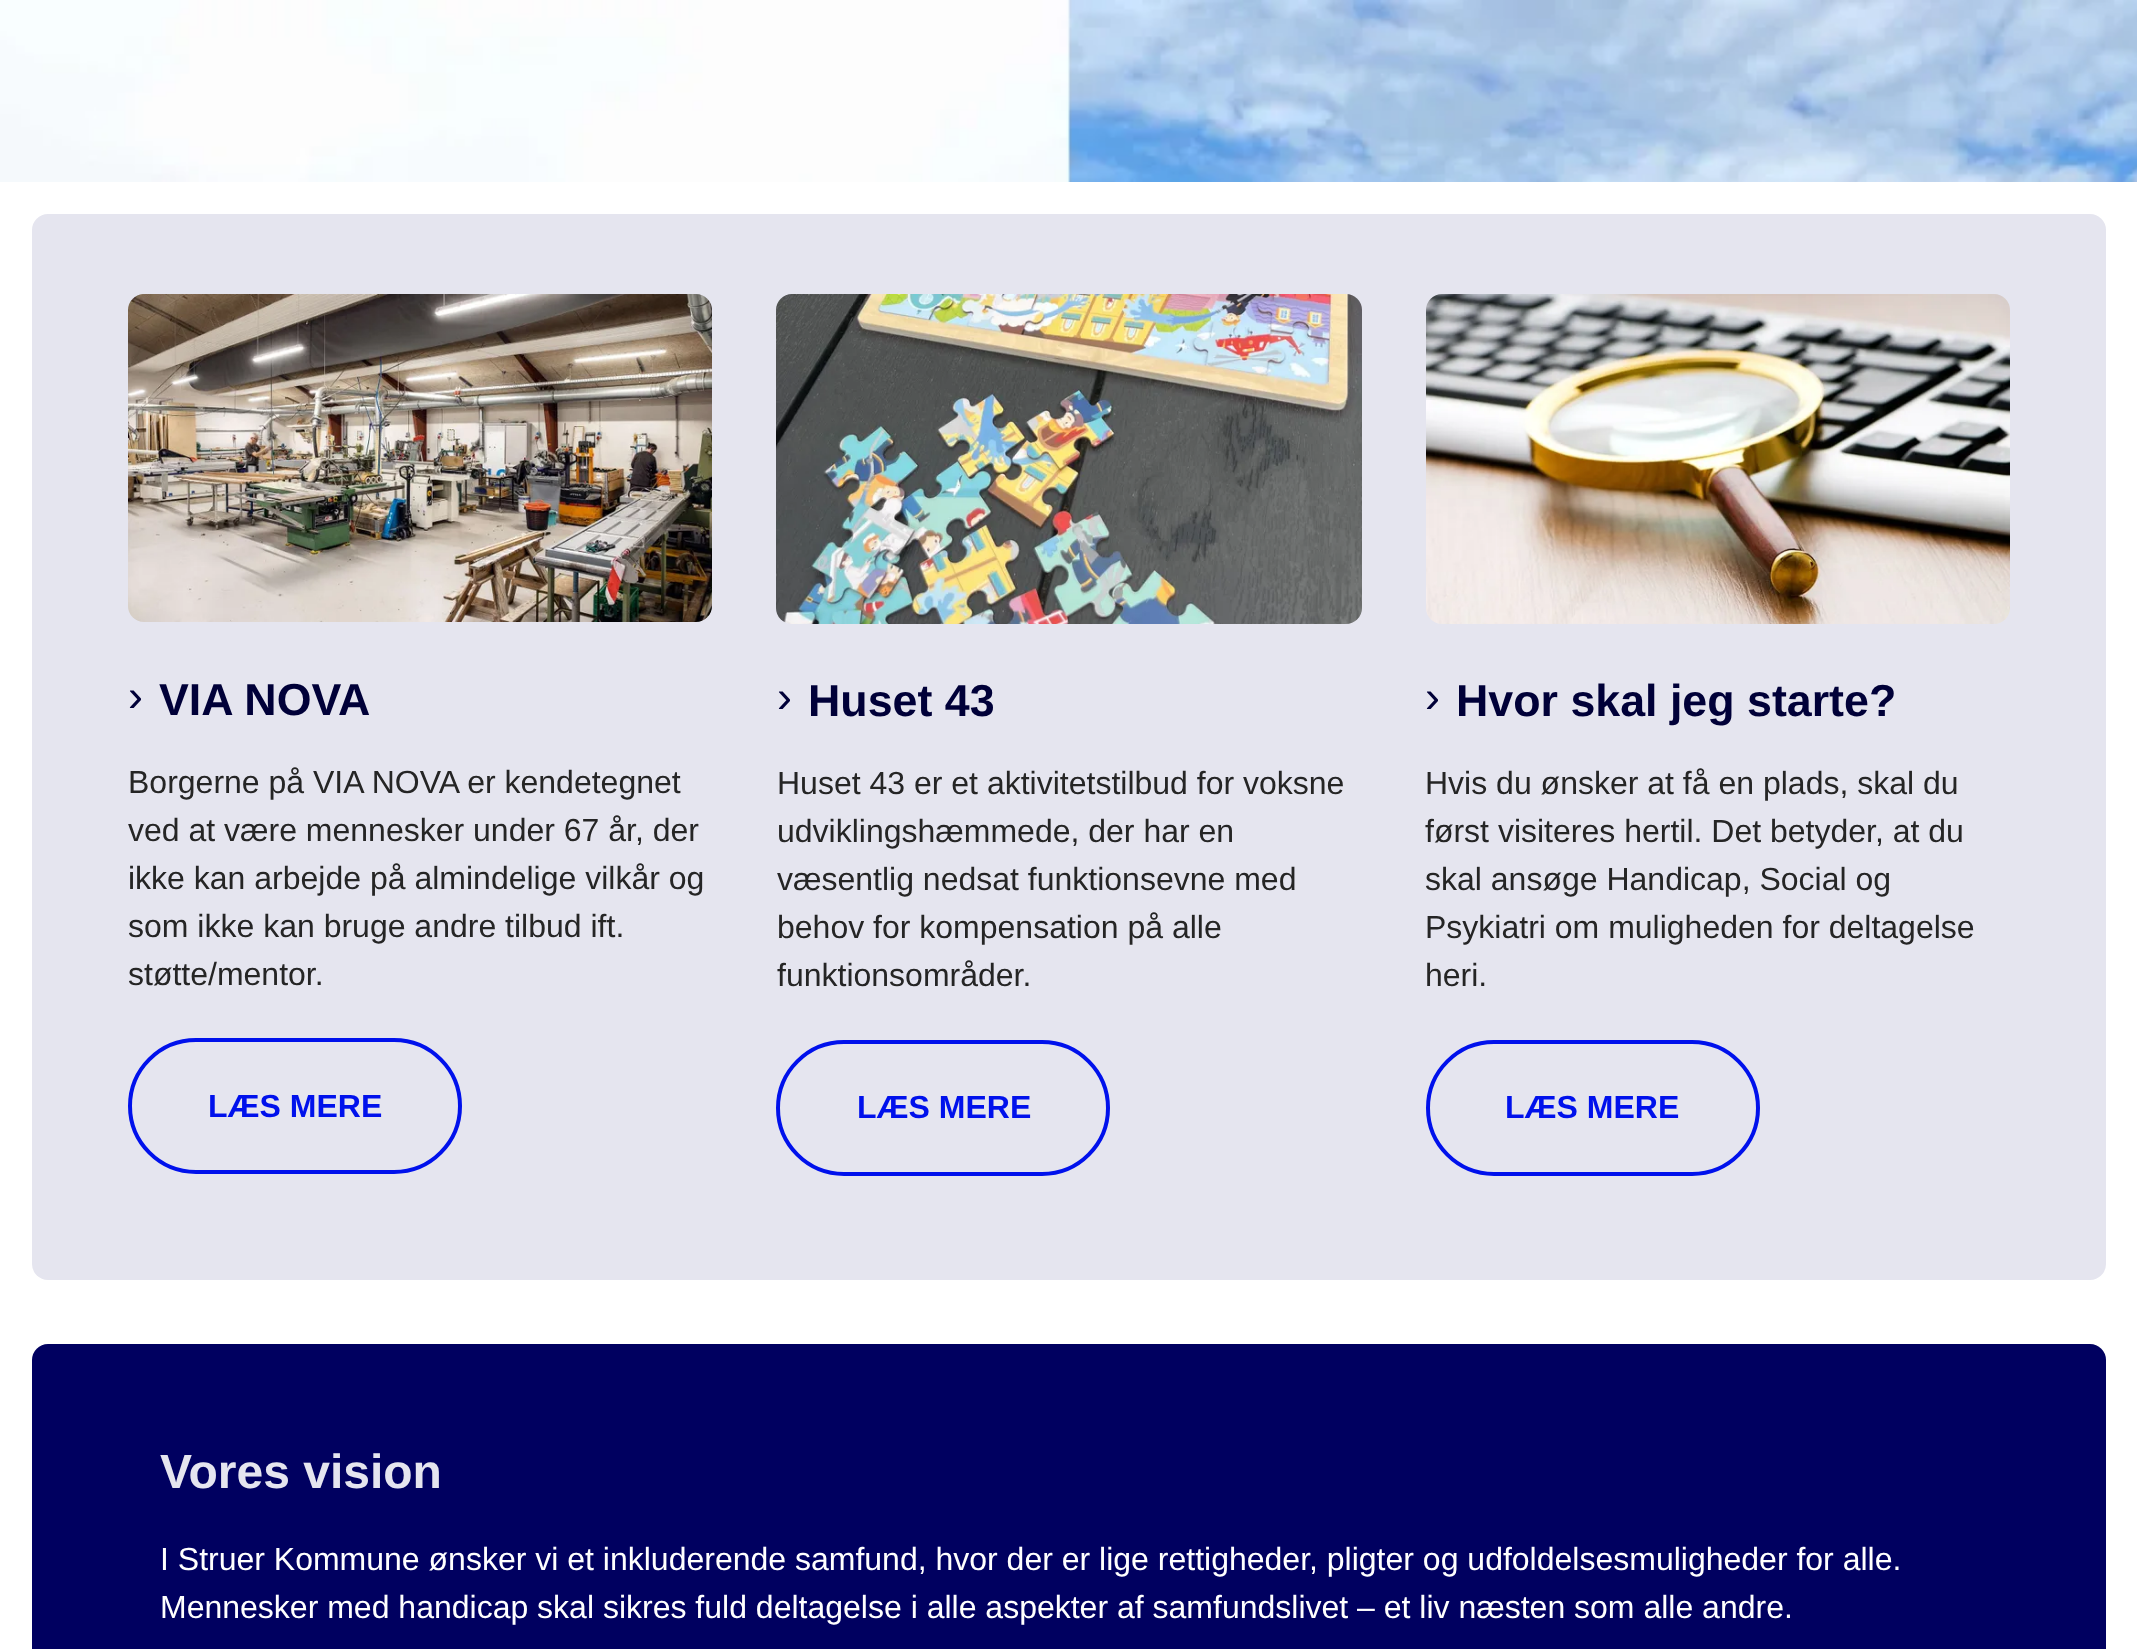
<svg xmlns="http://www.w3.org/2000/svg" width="2137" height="1649">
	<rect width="100%" height="100%" fill="#FFFFFF" />
	<image x="0" y="0" width="2137" height="182" href="assets/img1.png" />
	<rect x="32" y="214" width="2074" height="1066" rx="16" fill="#E5E5EF" />
	<image x="128" y="294" width="584" height="328" href="assets/img2.png" />
	<text x="128" y="711" font-family="Liberation Sans" font-size="44.75" fill="#000038">›</text>
	<text x="159" y="715" font-family="Liberation Sans" font-size="44.75" font-weight="700" fill="#000038">VIA NOVA</text>
	<g font-family="Liberation Sans" font-size="32" fill="#252525">
		<text x="128" y="793">Borgerne på VIA NOVA er kendetegnet</text>
		<text x="128" y="841">ved at være mennesker under 67 år, der</text>
		<text x="128" y="889">ikke kan arbejde på almindelige vilkår og</text>
		<text x="128" y="937">som ikke kan bruge andre tilbud ift.</text>
		<text x="128" y="985">støtte/mentor.</text>
	</g>
	<rect x="130" y="1040" width="330" height="132" rx="66" fill="none" stroke="#0011EC" stroke-width="4" />
	<text x="208" y="1117" font-family="Liberation Sans" font-size="32" font-weight="700" fill="#0011EC">LÆS MERE</text>
	<image x="776" y="294" width="586" height="330" href="assets/img3.png" />
	<text x="777" y="712" font-family="Liberation Sans" font-size="44.75" fill="#000038">›</text>
	<text x="808" y="716" font-family="Liberation Sans" font-size="44.75" font-weight="700" fill="#000038">Huset 43</text>
	<g font-family="Liberation Sans" font-size="32" fill="#252525">
		<text x="777" y="794">Huset 43 er et aktivitetstilbud for voksne</text>
		<text x="777" y="842">udviklingshæmmede, der har en</text>
		<text x="777" y="890">væsentlig nedsat funktionsevne med</text>
		<text x="777" y="938">behov for kompensation på alle</text>
		<text x="777" y="986">funktionsområder.</text>
	</g>
	<rect x="778" y="1042" width="330" height="132" rx="66" fill="none" stroke="#0011EC" stroke-width="4" />
	<text x="857" y="1118" font-family="Liberation Sans" font-size="32" font-weight="700" fill="#0011EC">LÆS MERE</text>
	<image x="1426" y="294" width="584" height="330" href="assets/img4.png" />
	<text x="1425" y="712" font-family="Liberation Sans" font-size="44.75" fill="#000038">›</text>
	<text x="1456" y="716" font-family="Liberation Sans" font-size="44.75" font-weight="700" fill="#000038">Hvor skal jeg starte?</text>
	<g font-family="Liberation Sans" font-size="32" fill="#252525">
		<text x="1425" y="794">Hvis du ønsker at få en plads, skal du</text>
		<text x="1425" y="842">først visiteres hertil. Det betyder, at du</text>
		<text x="1425" y="890">skal ansøge Handicap, Social og</text>
		<text x="1425" y="938">Psykiatri om muligheden for deltagelse</text>
		<text x="1425" y="986">heri.</text>
	</g>
	<rect x="1428" y="1042" width="330" height="132" rx="66" fill="none" stroke="#0011EC" stroke-width="4" />
	<text x="1505" y="1118" font-family="Liberation Sans" font-size="32" font-weight="700" fill="#0011EC">LÆS MERE</text>
	<rect x="32" y="1344" width="2074" height="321" rx="16" fill="#000060" />
	<text x="160" y="1488" font-family="Liberation Sans" font-size="48" font-weight="700" fill="#E5E5EF">Vores vision</text>
	<g font-family="Liberation Sans" font-size="32" fill="#FFFFFF">
		<text x="160" y="1570">I Struer Kommune ønsker vi et inkluderende samfund, hvor der er lige rettigheder, pligter og udfoldelsesmuligheder for alle.</text>
		<text x="160" y="1618">Mennesker med handicap skal sikres fuld deltagelse i alle aspekter af samfundslivet – et liv næsten som alle andre.</text>
	</g>
</svg>
